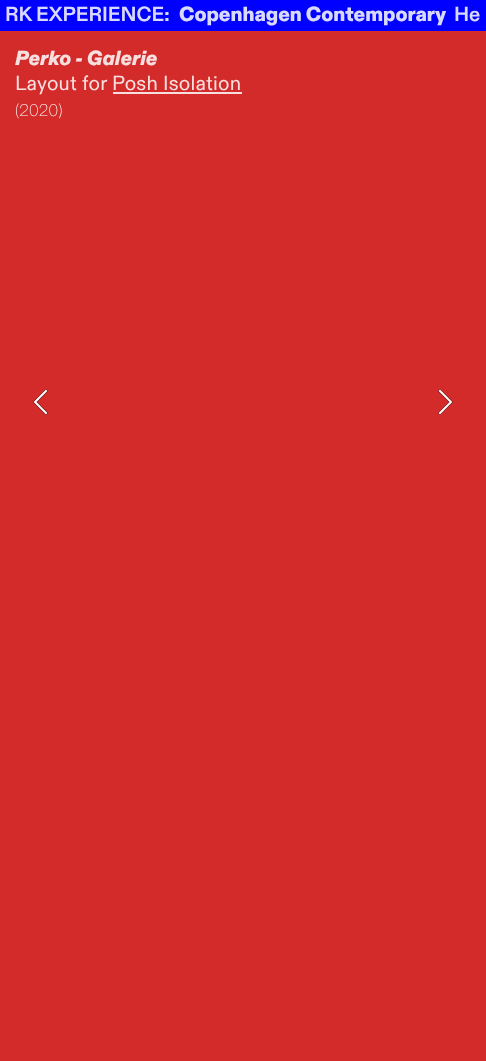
<svg xmlns="http://www.w3.org/2000/svg" width="486" height="1061">
	<rect width="100%" height="100%" fill="#D32A2A" />
	<rect x="0" y="0" width="486" height="31" fill="#0000FF" />
	<text x="5" y="21" font-family="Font" font-size="20.5" font-weight="700" fill="#D9D9FF">RK EXPERIENCE:</text>
	<text x="179" y="21" font-family="Font" font-size="20.5" font-weight="900" fill="#D9D9FF">Copenhagen Contemporary</text>
	<text x="454" y="21" font-family="Font" font-size="20.5" font-weight="700" fill="#D9D9FF">He</text>
	<text x="15" y="65" font-family="Font" font-size="20.5" font-weight="900" font-style="italic" fill="#F8DFDF">Perko - Galerie</text>
	<text x="15" y="90" font-family="Font" font-size="20.5" letter-spacing="0.2" fill="#F8DFDF">Layout for Posh Isolation</text>
	<rect x="113" y="92" width="129" height="2" fill="#F8DFDF" />
	<text x="15" y="116" font-family="Font" font-size="17" font-weight="200" fill="#FFFFFF">(2020)</text>
	<path d="M46 413L35 402L46 391" fill="none" stroke="#541111" stroke-width="3" stroke-linecap="square" />
	<path d="M46 413L35 402L46 391" fill="none" stroke="#FFFFFF" stroke-width="2" stroke-linecap="square" />
	<path d="M440 413L451 402L440 391" fill="none" stroke="#541111" stroke-width="3" stroke-linecap="square" />
	<path d="M440 413L451 402L440 391" fill="none" stroke="#FFFFFF" stroke-width="2" stroke-linecap="square" />
</svg>
